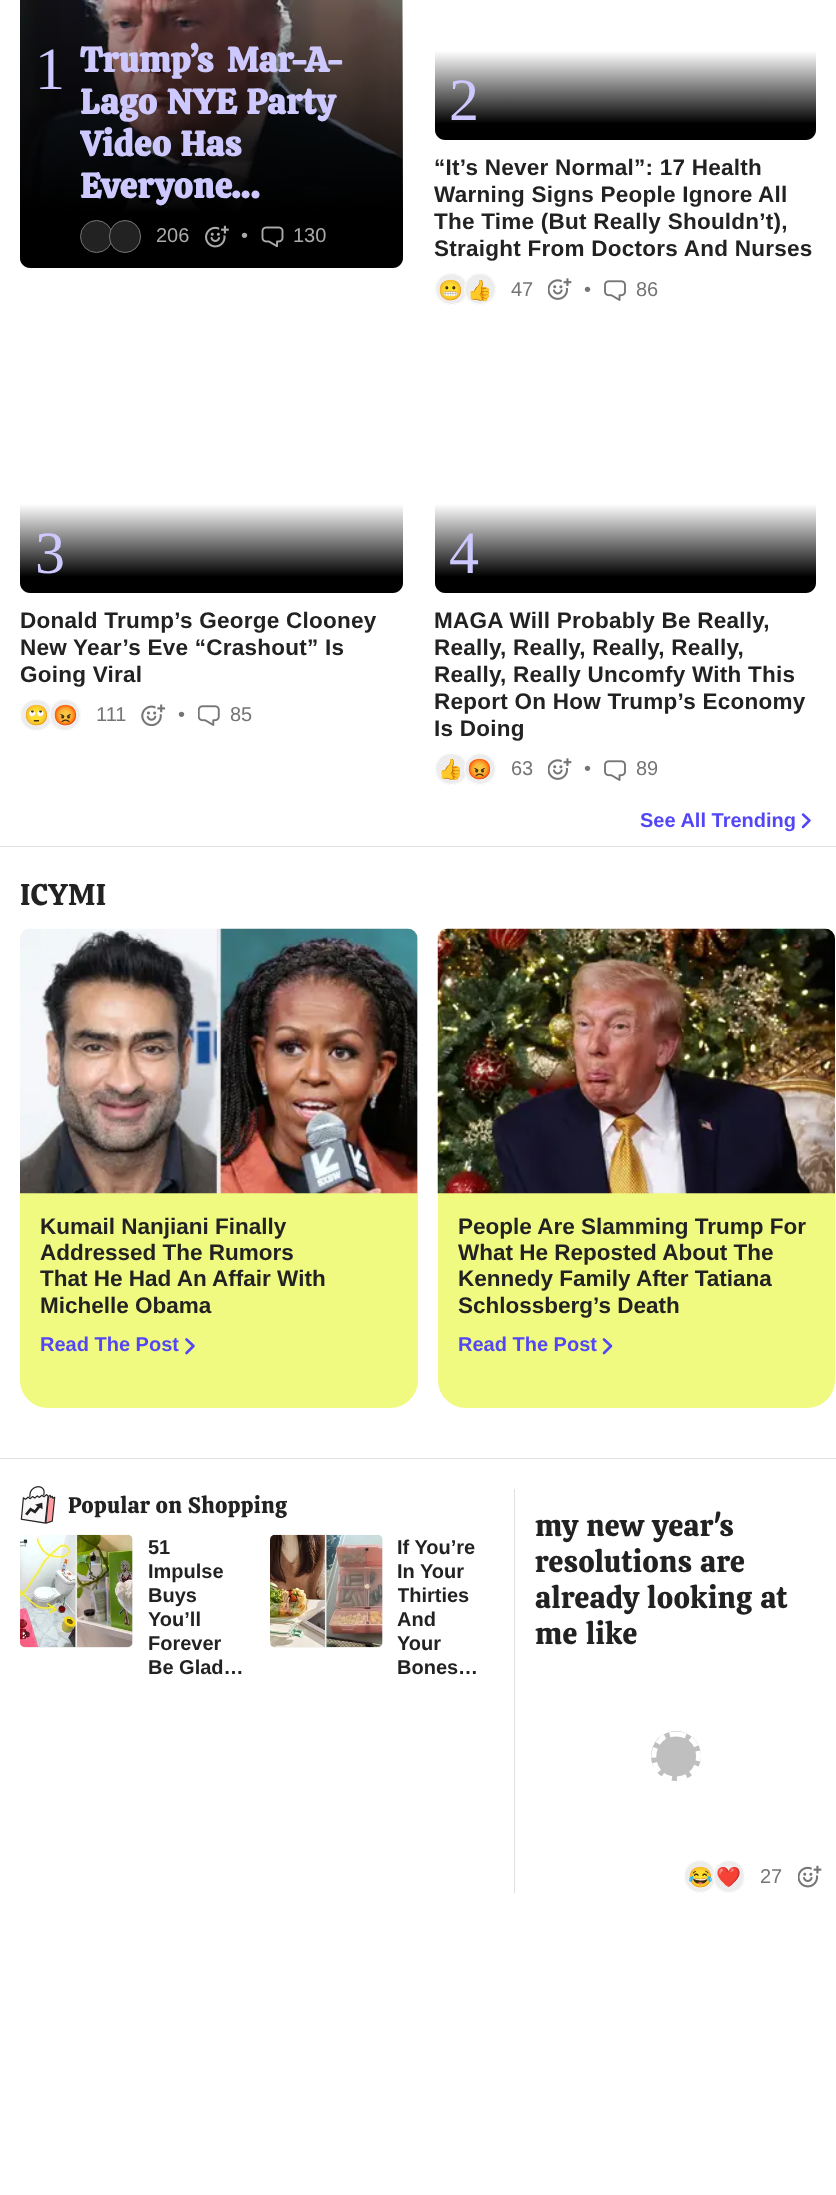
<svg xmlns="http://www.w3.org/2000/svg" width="836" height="2195">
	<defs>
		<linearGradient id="g1" gradientUnits="userSpaceOnUse" x1="211" y1="-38" x2="211" y2="268"><stop offset="0" stop-color="#000000" stop-opacity="0" /><stop offset="0.82" stop-color="#000000" /></linearGradient>
		<clipPath id="clip1"><rect x="80" y="40" width="303" height="168" /></clipPath>
		<linearGradient id="g2" gradientUnits="userSpaceOnUse" x1="626" y1="51" x2="626" y2="140"><stop offset="0" stop-color="#FFFFFF" /><stop offset="0.82" stop-color="#000000" /></linearGradient>
		<linearGradient id="g3" gradientUnits="userSpaceOnUse" x1="211" y1="504" x2="211" y2="593"><stop offset="0" stop-color="#FFFFFF" /><stop offset="0.82" stop-color="#000000" /></linearGradient>
		<linearGradient id="g4" gradientUnits="userSpaceOnUse" x1="626" y1="504" x2="626" y2="593"><stop offset="0" stop-color="#FFFFFF" /><stop offset="0.82" stop-color="#000000" /></linearGradient>
		<clipPath id="clip2"><rect x="398" y="1535" width="86" height="144" /></clipPath>
	</defs>
	<rect width="100%" height="100%" fill="#FFFFFF" />
	<rect x="0" y="846" width="836" height="1" fill="#E0E0E0" />
	<rect x="20" y="-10" width="383" height="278" rx="10" fill="#F4F4F4" />
	<image x="20" y="0" width="383" height="268" href="assets/img1.png" />
	<path d="M20-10H403V258C403 263.5 398.5 268 393 268H30C24.5 268 20 263.5 20 258Z" fill="url(#g1)" />
	<text x="35" y="89" font-family="Liberation Serif" font-size="60" fill="#CDC9FF">1</text>
	<g font-family="Calistoga" font-size="35" font-weight="700" letter-spacing="0.3" fill="#CDC9FF">
		<text x="80" y="72" word-spacing="6">Trump’s Mar-A-</text>
		<text x="80" y="114" word-spacing="2">Lago NYE Party</text>
	</g>
	<g clip-path="url(#clip1)">
		<text x="80" y="156" word-spacing="2" font-family="Calistoga" font-size="35" font-weight="700" letter-spacing="0.3" fill="#CDC9FF">Video Has</text>
	</g>
	<text x="80" y="198" font-family="Calistoga" font-size="35" font-weight="700" letter-spacing="0.3" fill="#CDC9FF">Everyone…</text>
	<circle cx="96.5" cy="236.5" r="16" fill="#222222" stroke="#757575" />
	<rect x="109.5" y="220.5" width="31" height="32" rx="15.5" fill="#222222" stroke="#757575" />
	<text x="156" y="242" font-family="Liberation Sans" font-size="20" fill="#AAAAAA">206</text>
	<image x="205" y="225" width="24" height="23" href="assets/img2.png" />
	<text x="241" y="242" font-family="Liberation Sans" font-size="20" fill="#AAAAAA">•</text>
	<image x="261" y="226" width="23" height="22" href="assets/img3.png" />
	<text x="293" y="242" font-family="Liberation Sans" font-size="20" fill="#AAAAAA">130</text>
	<path d="M435 51H816V130C816 135.5 811.5 140 806 140H445C439.5 140 435 135.5 435 130Z" fill="url(#g2)" />
	<text x="449" y="120" font-family="Liberation Serif" font-size="60" fill="#CDC9FF">2</text>
	<g font-family="Liberation Sans" font-size="22.5" font-weight="700" letter-spacing="0.25" fill="#222222">
		<text x="434" y="175">“It’s Never Normal”: 17 Health</text>
		<text x="434" y="202">Warning Signs People Ignore All</text>
		<text x="434" y="229">The Time (But Really Shouldn’t),</text>
		<text x="434" y="256">Straight From Doctors And Nurses</text>
	</g>
	<rect x="435" y="273" width="33" height="32" rx="16" fill="#EDEDED" />
	<rect x="435.5" y="273.5" width="32" height="31" rx="15.5" fill="none" stroke="#FFFFFF" />
	<text x="438" y="297" font-family="Noto Color Emoji" font-size="20" fill="#222222">😬</text>
	<circle cx="480" cy="289" r="16" fill="#EDEDED" />
	<text x="467" y="297" font-family="Noto Color Emoji" font-size="20" fill="#222222">👍</text>
	<circle cx="480" cy="289" r="15.5" fill="none" stroke="#FFFFFF" />
	<text x="511" y="296" font-family="Liberation Sans" font-size="20" fill="#757575">47</text>
	<image x="548" y="278" width="24" height="22" href="assets/img4.png" />
	<text x="584" y="296" font-family="Liberation Sans" font-size="20" fill="#757575">•</text>
	<image x="604" y="280" width="22" height="21" href="assets/img5.png" />
	<text x="636" y="296" font-family="Liberation Sans" font-size="20" fill="#757575">86</text>
	<path d="M20 504H403V583C403 588.5 398.5 593 393 593H30C24.5 593 20 588.5 20 583Z" fill="url(#g3)" />
	<text x="35" y="573" font-family="Liberation Serif" font-size="60" fill="#CDC9FF">3</text>
	<g font-family="Liberation Sans" font-size="22.5" font-weight="700" letter-spacing="0.25" fill="#222222">
		<text x="20" y="628">Donald Trump’s George Clooney</text>
		<text x="20" y="655">New Year’s Eve “Crashout” Is</text>
		<text x="20" y="682">Going Viral</text>
	</g>
	<rect x="20" y="699" width="33" height="32" rx="16" fill="#EDEDED" />
	<rect x="20.5" y="699.5" width="32" height="31" rx="15.5" fill="none" stroke="#FFFFFF" />
	<text x="24" y="722" font-family="Noto Color Emoji" font-size="20" fill="#222222">🙄</text>
	<circle cx="65" cy="715" r="16" fill="#EDEDED" />
	<text x="53" y="722" font-family="Noto Color Emoji" font-size="20" fill="#222222">😡</text>
	<circle cx="65" cy="715" r="15.5" fill="none" stroke="#FFFFFF" />
	<text x="96" y="721" font-family="Liberation Sans" font-size="20" fill="#757575">111</text>
	<image x="141" y="704" width="25" height="22" href="assets/img6.png" />
	<text x="178" y="721" font-family="Liberation Sans" font-size="20" fill="#757575">•</text>
	<image x="198" y="705" width="22" height="21" href="assets/img7.png" />
	<text x="230" y="721" font-family="Liberation Sans" font-size="20" fill="#757575">85</text>
	<path d="M435 504H816V583C816 588.5 811.5 593 806 593H445C439.5 593 435 588.5 435 583Z" fill="url(#g4)" />
	<text x="449" y="573" font-family="Liberation Serif" font-size="60" fill="#CDC9FF">4</text>
	<g font-family="Liberation Sans" font-size="22.5" font-weight="700" letter-spacing="0.25" fill="#222222">
		<text x="434" y="628">MAGA Will Probably Be Really,</text>
		<text x="434" y="655">Really, Really, Really, Really,</text>
		<text x="434" y="682">Really, Really Uncomfy With This</text>
		<text x="434" y="709">Report On How Trump’s Economy</text>
		<text x="434" y="736">Is Doing</text>
	</g>
	<rect x="435" y="753" width="33" height="32" rx="16" fill="#EDEDED" />
	<rect x="435.5" y="753.5" width="32" height="31" rx="15.5" fill="none" stroke="#FFFFFF" />
	<text x="438" y="776" font-family="Noto Color Emoji" font-size="20" fill="#222222">👍</text>
	<circle cx="480" cy="769" r="16" fill="#EDEDED" />
	<text x="467" y="776" font-family="Noto Color Emoji" font-size="20" fill="#222222">😡</text>
	<circle cx="480" cy="769" r="15.5" fill="none" stroke="#FFFFFF" />
	<text x="511" y="775" font-family="Liberation Sans" font-size="20" fill="#757575">63</text>
	<image x="548" y="758" width="24" height="22" href="assets/img4.png" />
	<text x="584" y="775" font-family="Liberation Sans" font-size="20" fill="#757575">•</text>
	<image x="604" y="760" width="22" height="21" href="assets/img5.png" />
	<text x="636" y="775" font-family="Liberation Sans" font-size="20" fill="#757575">89</text>
	<text x="640" y="827" font-family="Liberation Sans" font-size="20" font-weight="700" fill="#5246F5">See All Trending</text>
	<path d="M803 814.5L809.5 820.5L803 827" fill="none" stroke="#5246F5" stroke-width="2.5" stroke-linecap="round" stroke-linejoin="round" />
	<rect x="0" y="1458" width="836" height="1" fill="#E0E0E0" />
	<text x="20" y="905" font-family="Calistoga" font-size="30" letter-spacing="0.25" fill="#222222">ICYMI</text>
	<path d="M30 929H408C413.5 929 418 933.5 418 939V1380C418 1395.5 405.5 1408 390 1408H48C32.5 1408 20 1395.5 20 1380V939C20 933.5 24.5 929 30 929Z" fill="#F0FA81" />
	<image x="20" y="928" width="398" height="266" href="assets/img8.png" />
	<g font-family="Liberation Sans" font-size="22.5" font-weight="700" fill="#222222">
		<text x="40" y="1234">Kumail Nanjiani Finally</text>
		<text x="40" y="1260">Addressed The Rumors</text>
		<text x="40" y="1286">That He Had An Affair With</text>
		<text x="40" y="1313">Michelle Obama</text>
	</g>
	<text x="40" y="1351" font-family="Liberation Sans" font-size="20" font-weight="700" fill="#5246F5">Read The Post</text>
	<path d="M186.5 1339.5L193.5 1346L186.5 1353" fill="none" stroke="#5246F5" stroke-width="2.6" stroke-linecap="round" stroke-linejoin="round" />
	<path d="M448 929H825C830.5 929 835 933.5 835 939V1380C835 1395.5 822.5 1408 807 1408H466C450.5 1408 438 1395.5 438 1380V939C438 933.5 442.5 929 448 929Z" fill="#F0FA81" />
	<image x="437" y="928" width="398" height="266" href="assets/img9.png" />
	<g font-family="Liberation Sans" font-size="22.5" font-weight="700" fill="#222222">
		<text x="458" y="1234">People Are Slamming Trump For</text>
		<text x="458" y="1260">What He Reposted About The</text>
		<text x="458" y="1286">Kennedy Family After Tatiana</text>
		<text x="458" y="1313">Schlossberg’s Death</text>
	</g>
	<text x="458" y="1351" font-family="Liberation Sans" font-size="20" font-weight="700" fill="#5246F5">Read The Post</text>
	<path d="M604 1339.5L611 1346L604 1353" fill="none" stroke="#5246F5" stroke-width="2.6" stroke-linecap="round" stroke-linejoin="round" />
	<rect x="514" y="1489" width="1" height="404" fill="#E0E0E0" />
	<image x="20" y="1486" width="36" height="38" href="assets/img10.png" />
	<text x="68" y="1513" word-spacing="1" font-family="Calistoga" font-size="22.5" letter-spacing="0.25" fill="#222222">Popular on Shopping</text>
	<rect x="20" y="1535" width="113" height="113" rx="5" fill="#F4F4F4" />
	<image x="20" y="1534" width="113" height="114" href="assets/img11.png" />
	<g font-family="Liberation Sans" font-size="20" font-weight="700" fill="#222222">
		<text x="148" y="1554">51</text>
		<text x="148" y="1578">Impulse</text>
		<text x="148" y="1602">Buys</text>
		<text x="148" y="1626">You’ll</text>
		<text x="148" y="1650">Forever</text>
		<text x="148" y="1674">Be Glad…</text>
	</g>
	<rect x="270" y="1535" width="113" height="113" rx="5" fill="#F4F4F4" />
	<image x="270" y="1534" width="113" height="114" href="assets/img12.png" />
	<g font-family="Liberation Sans" font-size="20" font-weight="700" fill="#222222">
		<text x="397" y="1554">If You’re</text>
		<text x="397" y="1578">In Your</text>
	</g>
	<g clip-path="url(#clip2)">
		<text x="397" y="1602" font-family="Liberation Sans" font-size="20" font-weight="700" fill="#222222">Thirties</text>
	</g>
	<g font-family="Liberation Sans" font-size="20" font-weight="700" fill="#222222">
		<text x="397" y="1626">And</text>
		<text x="397" y="1650">Your</text>
		<text x="397" y="1674">Bones…</text>
	</g>
	<g font-family="Calistoga" font-size="30" letter-spacing="0.25" fill="#222222">
		<text x="535" y="1536" word-spacing="2">my new year's</text>
		<text x="535" y="1572" word-spacing="2">resolutions are</text>
		<text x="535" y="1608" word-spacing="2">already looking at</text>
		<text x="535" y="1644" word-spacing="2">me like</text>
	</g>
	<circle cx="676" cy="1756" r="25" fill="#BFBFBF" />
	<path d="M676 1734C706 1734 706 1778.5 676 1779C646.5 1779 646.5 1734 676 1734Z" fill="none" stroke="#FFFFFF" stroke-width="5" stroke-dasharray="10 5" />
	<rect x="684" y="1860" width="32" height="33" rx="16" fill="#EDEDED" />
	<rect x="684.5" y="1860.5" width="31" height="32" rx="15.5" fill="none" stroke="#FFFFFF" />
	<text x="688" y="1884" font-family="Noto Color Emoji" font-size="20" fill="#222222">😂</text>
	<rect x="713" y="1860" width="32" height="33" rx="16" fill="#EDEDED" />
	<rect x="713.5" y="1860.5" width="31" height="32" rx="15.5" fill="none" stroke="#FFFFFF" />
	<text x="716" y="1884" font-family="Noto Color Emoji" font-size="20" fill="#222222">❤️</text>
	<text x="760" y="1883" font-family="Liberation Sans" font-size="20" fill="#757575">27</text>
	<image x="798" y="1865" width="24" height="23" href="assets/img13.png" />
</svg>
